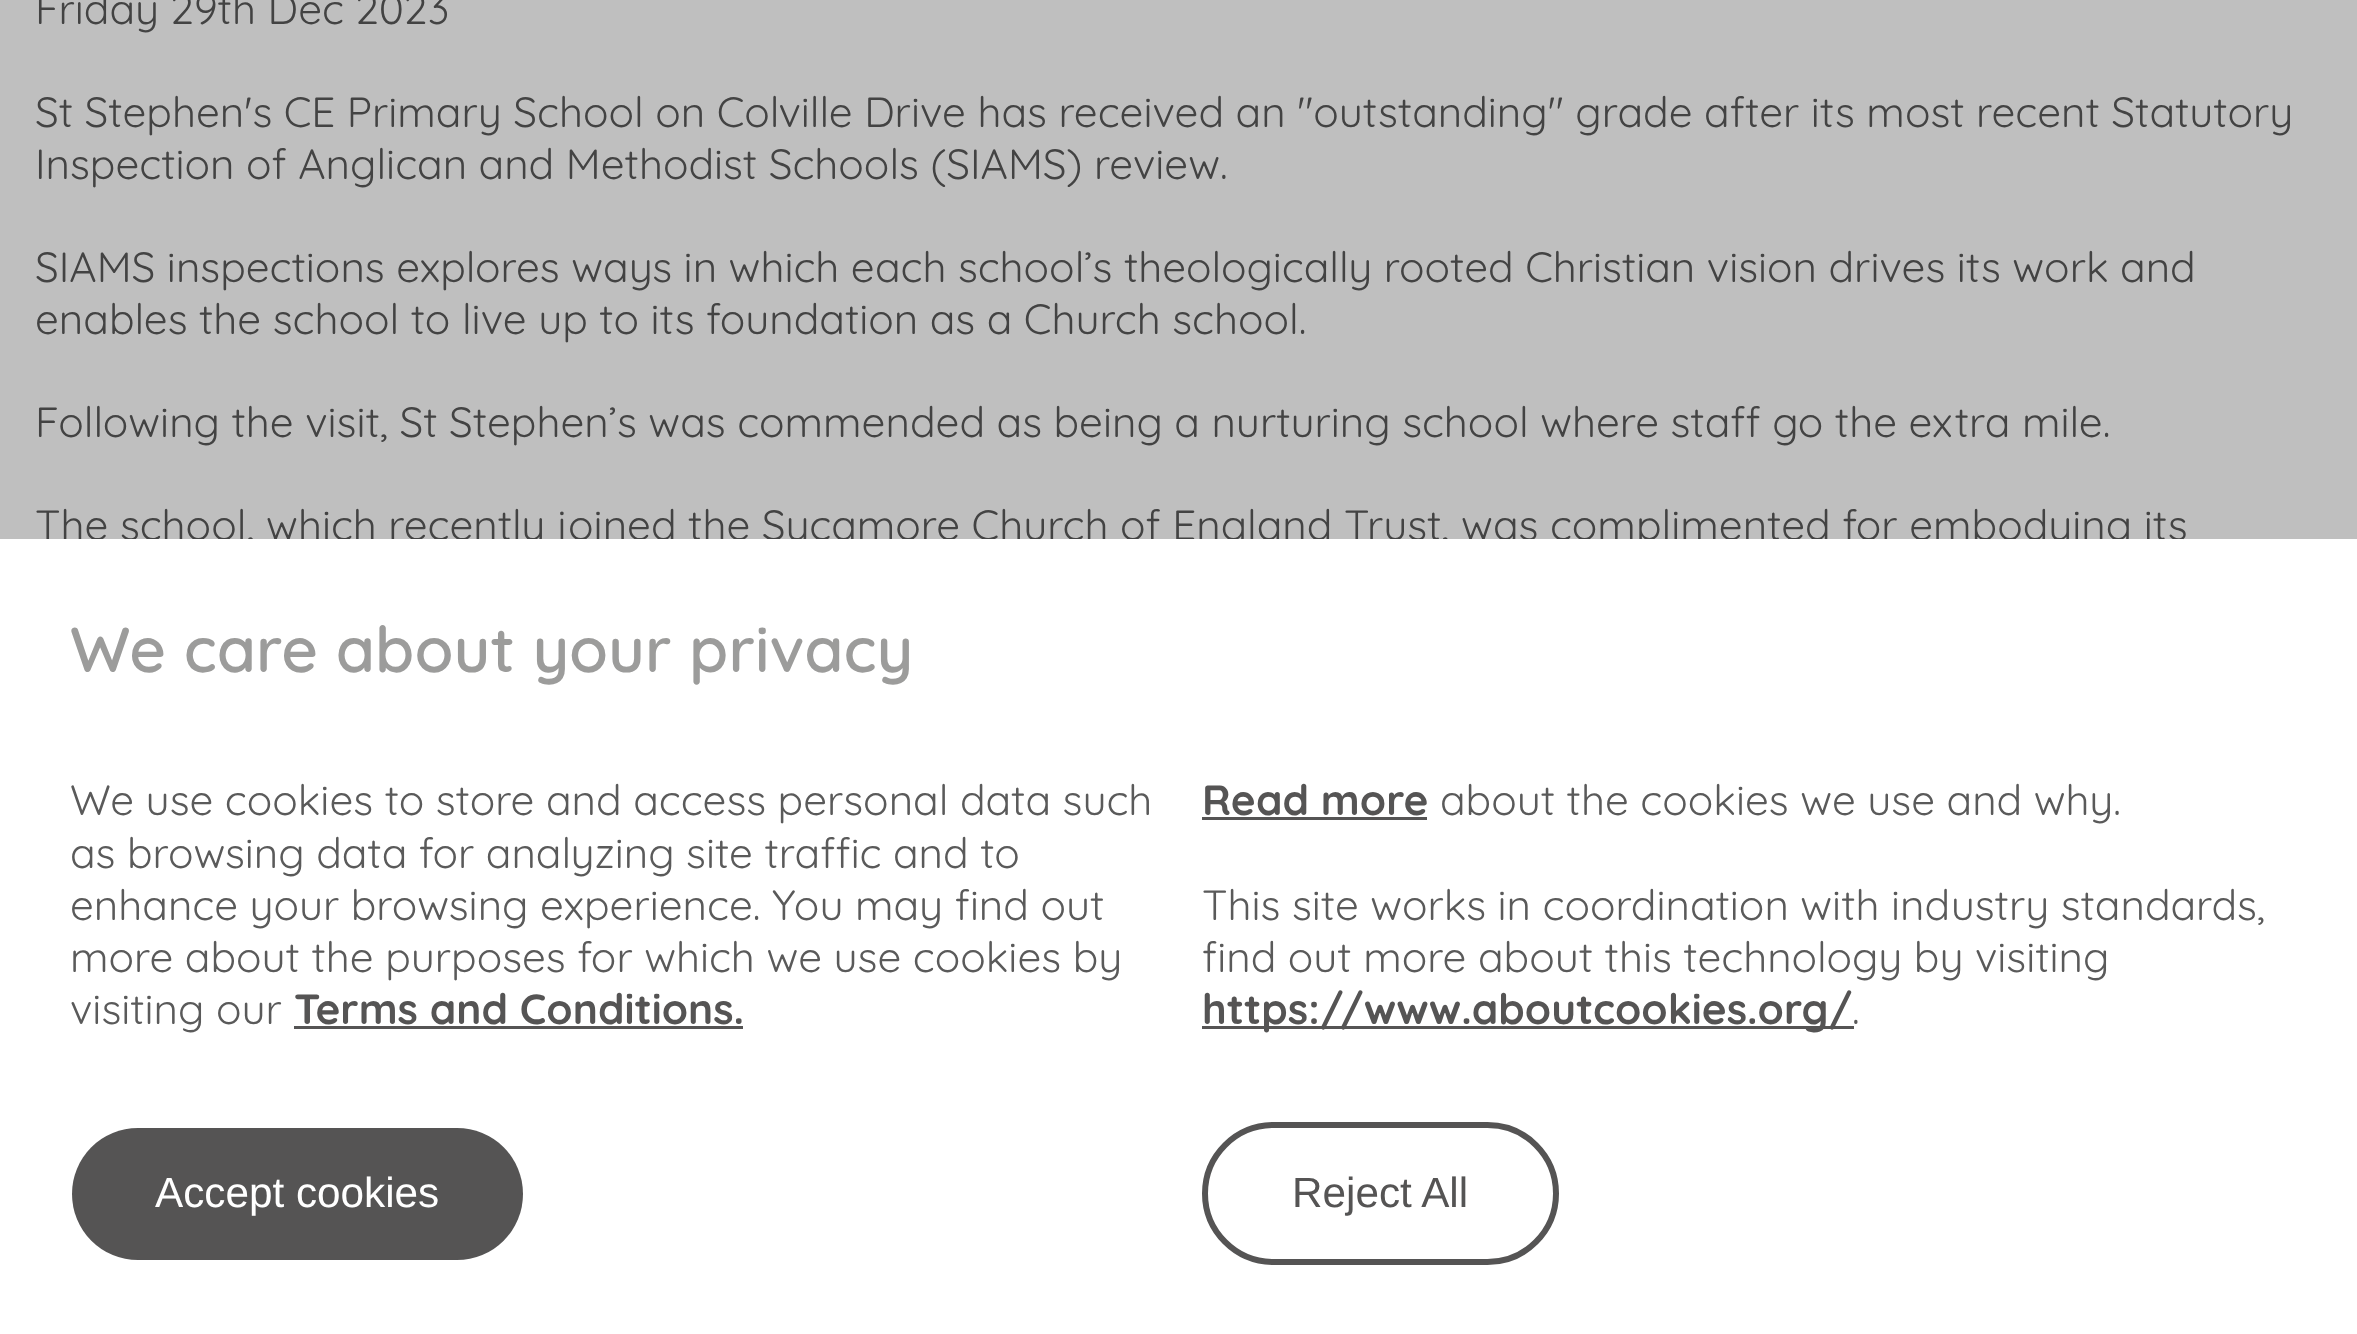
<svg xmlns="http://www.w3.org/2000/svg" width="2357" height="1334">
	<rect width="100%" height="100%" fill="#FFFFFF" />
	<g font-family="Quicksand" font-size="42.25" fill="#5A5A5A">
		<text x="35" y="24">Friday 29th Dec 2023</text>
		<text x="35" y="127">St Stephen's CE Primary School on Colville Drive has received an "outstanding" grade after its most recent Statutory</text>
		<text x="35" y="179">Inspection of Anglican and Methodist Schools (SIAMS) review.</text>
		<text x="35" y="282">SIAMS inspections explores ways in which each school’s theologically rooted Christian vision drives its work and</text>
		<text x="35" y="334">enables the school to live up to its foundation as a Church school.</text>
		<text x="35" y="437">Following the visit, St Stephen’s was commended as being a nurturing school where staff go the extra mile.</text>
		<text x="35" y="540">The school, which recently joined the Sycamore Church of England Trust, was complimented for embodying its</text>
	</g>
	<rect x="-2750" y="-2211" width="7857" height="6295" fill="none" stroke="#000000" stroke-opacity="0.25" stroke-width="5500" />
	<rect x="46" y="539" width="2137" height="10" fill="#FFFFFF" />
	<text x="70" y="672" font-family="Quicksand" font-size="63.4" font-weight="600" fill="#9C9C9B">We care about your privacy</text>
	<g font-family="Quicksand" font-size="42.25" fill="#5A5A5A">
		<text x="70" y="815">We use cookies to store and access personal data such</text>
		<text x="70" y="868">as browsing data for analyzing site traffic and to</text>
		<text x="70" y="920">enhance your browsing experience. You may find out</text>
		<text x="70" y="972">more about the purposes for which we use cookies by</text>
		<text x="70" y="1024">visiting our</text>
	</g>
	<text x="294" y="1024" font-family="Quicksand" font-size="42.25" font-weight="700" fill="#555454">Terms and Conditions.</text>
	<rect x="294" y="1026" width="449" height="3" fill="#555454" />
	<text x="1202" y="815" font-family="Quicksand" font-size="42.25" font-weight="700" fill="#555454">Read more</text>
	<rect x="1202" y="817" width="225" height="3" fill="#555454" />
	<g font-family="Quicksand" font-size="42.25" fill="#5A5A5A">
		<text x="1440" y="815">about the cookies we use and why.</text>
		<text x="1202" y="920">This site works in coordination with industry standards,</text>
		<text x="1202" y="972">find out more about this technology by visiting</text>
	</g>
	<rect x="1202" y="1026" width="652" height="3" fill="#555454" />
	<text x="1202" y="1024" font-family="Quicksand" font-size="42.25" font-weight="700" fill="#555454">https://www.aboutcookies.org/</text>
	<text x="1852" y="1024" font-family="Quicksand" font-size="42.25" fill="#5A5A5A">.</text>
	<rect x="72" y="1128" width="451" height="132" rx="66" fill="#555454" />
	<text x="155" y="1207" font-family="Liberation Sans" font-size="42.25" fill="#FFFFFF">Accept cookies</text>
	<rect x="1205" y="1125" width="351" height="137" rx="68.5" fill="none" stroke="#555454" stroke-width="6" />
	<text x="1292" y="1207" font-family="Liberation Sans" font-size="42.25" fill="#555454">Reject All</text>
</svg>
